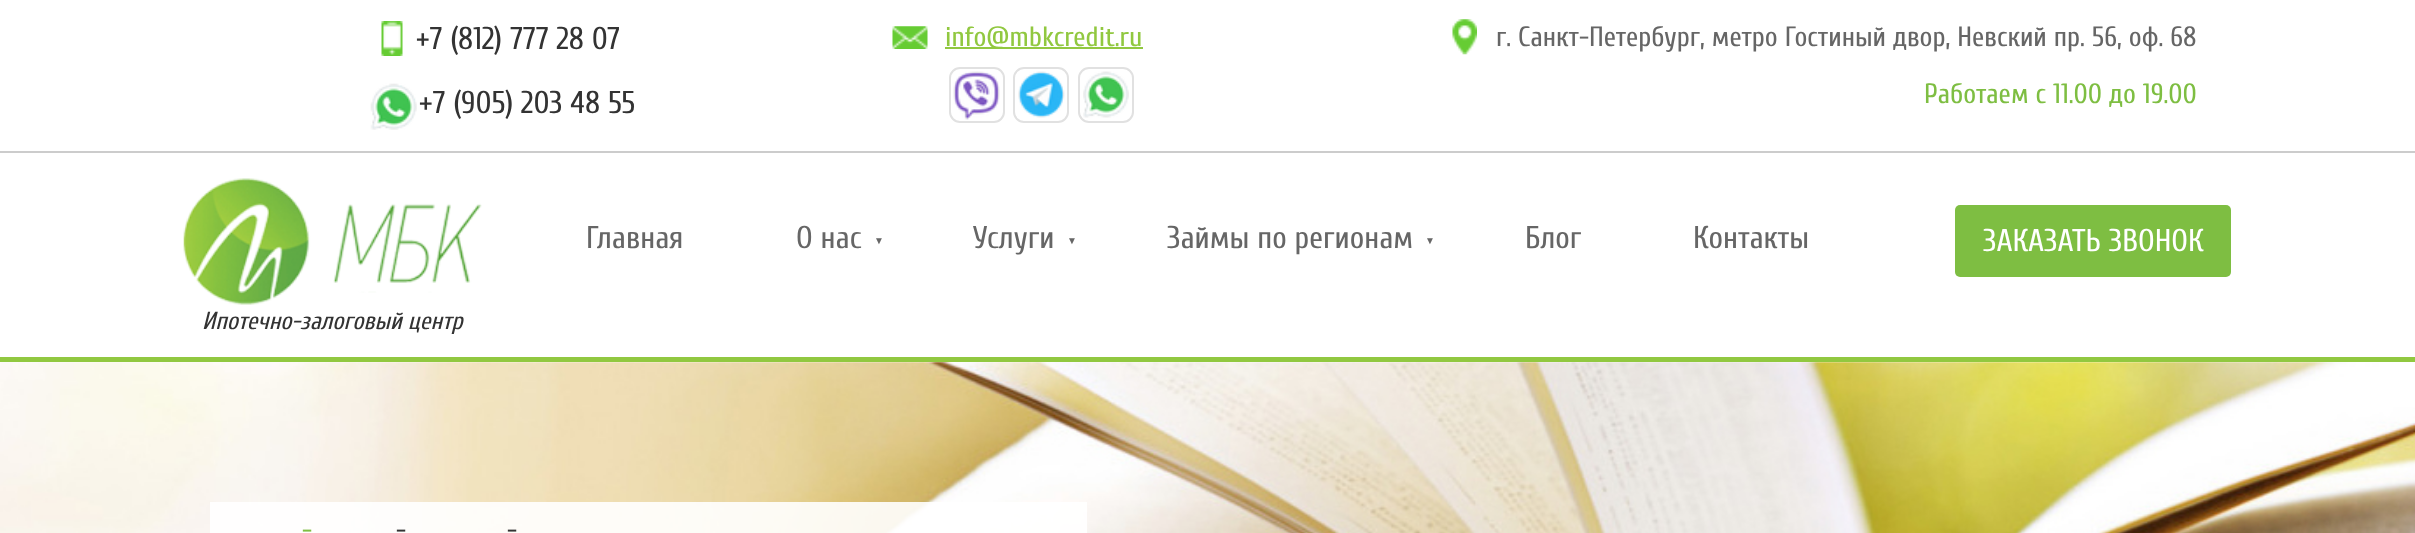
<svg xmlns="http://www.w3.org/2000/svg" width="2415" height="533">
	<rect width="100%" height="100%" fill="#FFFFFF" />
	<rect x="0" y="151" width="2415" height="2" fill="#CCCCCC" />
	<image x="381" y="21" width="22" height="35" href="assets/img1.png" />
	<text x="416" y="49" font-family="Cuprum" font-size="31.5" fill="#333333">+7 (812) 777 28 07</text>
	<image x="370" y="83" width="47" height="47" href="assets/img2.png" />
	<text x="419" y="113" font-family="Cuprum" font-size="31.5" fill="#333333">+7 (905) 203 48 55</text>
	<image x="892" y="26" width="36" height="23" href="assets/img3.png" />
	<rect x="945" y="47" width="198" height="2" fill="#91C840" />
	<text x="945" y="46" font-family="Cuprum" font-size="28" fill="#91C840">info@mbkcredit.ru</text>
	<rect x="950" y="68" width="54" height="54" rx="10" fill="none" stroke="#E1E1E1" stroke-width="2" />
	<image x="953" y="71" width="47" height="49" href="assets/img4.png" />
	<rect x="1014" y="68" width="54" height="54" rx="10" fill="none" stroke="#E1E1E1" stroke-width="2" />
	<image x="1018" y="71" width="47" height="47" href="assets/img5.png" />
	<rect x="1079" y="68" width="54" height="54" rx="10" fill="none" stroke="#E1E1E1" stroke-width="2" />
	<image x="1083" y="71" width="46" height="47" href="assets/img6.png" />
	<image x="1452" y="19" width="25" height="36" href="assets/img7.png" />
	<text x="1496" y="46" font-family="Cuprum" font-size="28" fill="#666666">г. Санкт-Петербург, метро Гостиный двор, Невский пр. 56, оф. 68</text>
	<text x="1924" y="103" font-family="Cuprum" font-size="28" fill="#7EBE42">Работаем с 11.00 до 19.00</text>
	<rect x="0" y="357" width="2415" height="5" fill="#91C840" />
	<g font-family="Cuprum" font-size="31.5" fill="#666666">
		<text x="586" y="248">Главная</text>
		<text x="796" y="248">О нас</text>
	</g>
	<text x="874" y="244" font-family="Liberation Sans" font-size="10" fill="#666666">▼</text>
	<text x="973" y="248" font-family="Cuprum" font-size="31.5" fill="#666666">Услуги</text>
	<text x="1067" y="244" font-family="Liberation Sans" font-size="10" fill="#666666">▼</text>
	<text x="1167" y="248" font-family="Cuprum" font-size="31.5" fill="#666666">Займы по регионам</text>
	<text x="1425" y="244" font-family="Liberation Sans" font-size="10" fill="#666666">▼</text>
	<g font-family="Cuprum" font-size="31.5" fill="#666666">
		<text x="1525" y="248">Блог</text>
		<text x="1693" y="248">Контакты</text>
	</g>
	<rect x="1955" y="205" width="276" height="72" rx="5" fill="#7EBE42" />
	<text x="1983" y="251" font-family="Cuprum" font-size="31.5" fill="#FFFFFF">ЗАКАЗАТЬ ЗВОНОК</text>
	<image x="183" y="178" width="299" height="127" href="assets/img8.png" />
	<text x="202" y="329" font-family="Cuprum" font-size="24.5" font-style="italic" fill="#333333">Ипотечно-залоговый центр</text>
	<image x="0" y="362" width="2415" height="171" href="assets/img9.png" />
	<rect x="210" y="502" width="877" height="31" fill="#FFFFFF" fill-opacity="0.9" />
	<text x="302" y="539" font-family="Cuprum" font-size="28" fill="#7EBE42">-</text>
	<g font-family="Cuprum" font-size="28" fill="#333333">
		<text x="396" y="539">-</text>
		<text x="507" y="539">-</text>
	</g>
</svg>
